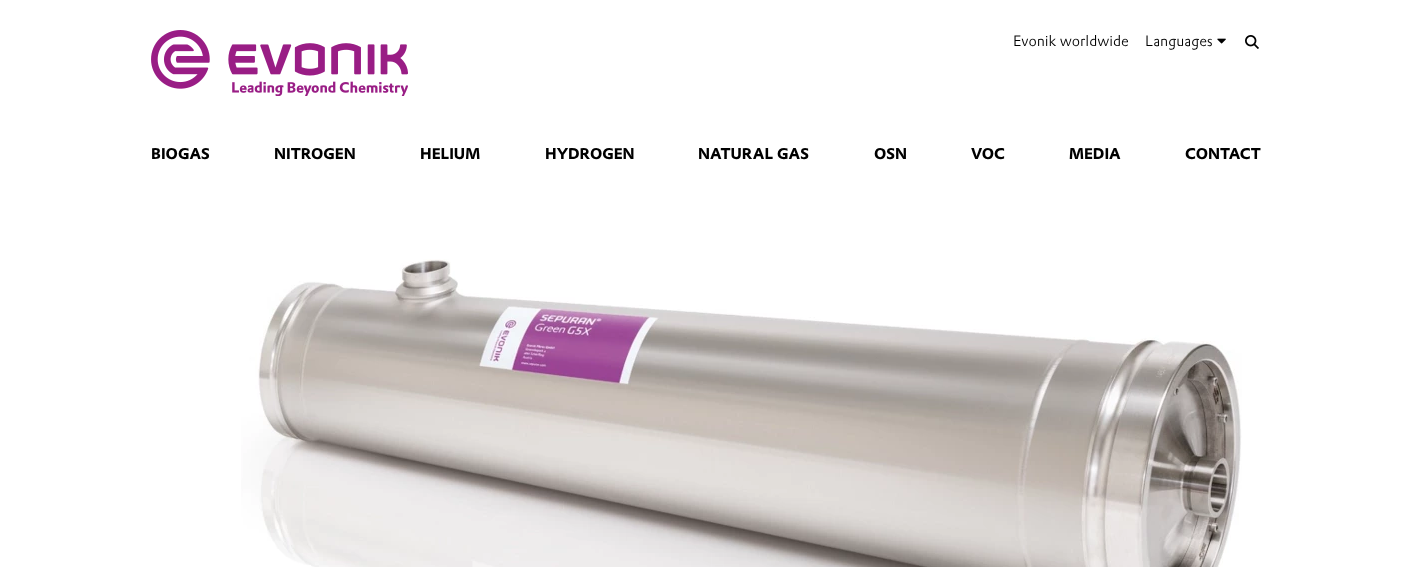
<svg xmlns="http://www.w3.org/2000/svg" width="1412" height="567">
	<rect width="100%" height="100%" fill="#FFFFFF" />
	<image x="151" y="30" width="257" height="66" href="assets/img1.png" />
	<g font-family="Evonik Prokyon" font-size="14.75" font-weight="300" fill="#000000">
		<text x="1013" y="46">Evonik worldwide</text>
		<text x="1145" y="46">Languages</text>
	</g>
	<image x="1217" y="38" width="9" height="6" href="assets/img2.png" />
	<image x="1245" y="35" width="14" height="14" href="assets/img3.png" />
	<g font-family="Evonik Prokyon" font-size="15.25" font-weight="700" fill="#000000">
		<text x="151" y="159">BIOGAS</text>
		<text x="274" y="159">NITROGEN</text>
		<text x="420" y="159">HELIUM</text>
		<text x="545" y="159">HYDROGEN</text>
		<text x="698" y="159">NATURAL GAS</text>
		<text x="874" y="159">OSN</text>
		<text x="971" y="159">VOC</text>
		<text x="1069" y="159">MEDIA</text>
		<text x="1185" y="159">CONTACT</text>
	</g>
	<image x="241" y="259" width="1001" height="308" href="assets/img4.png" />
</svg>
